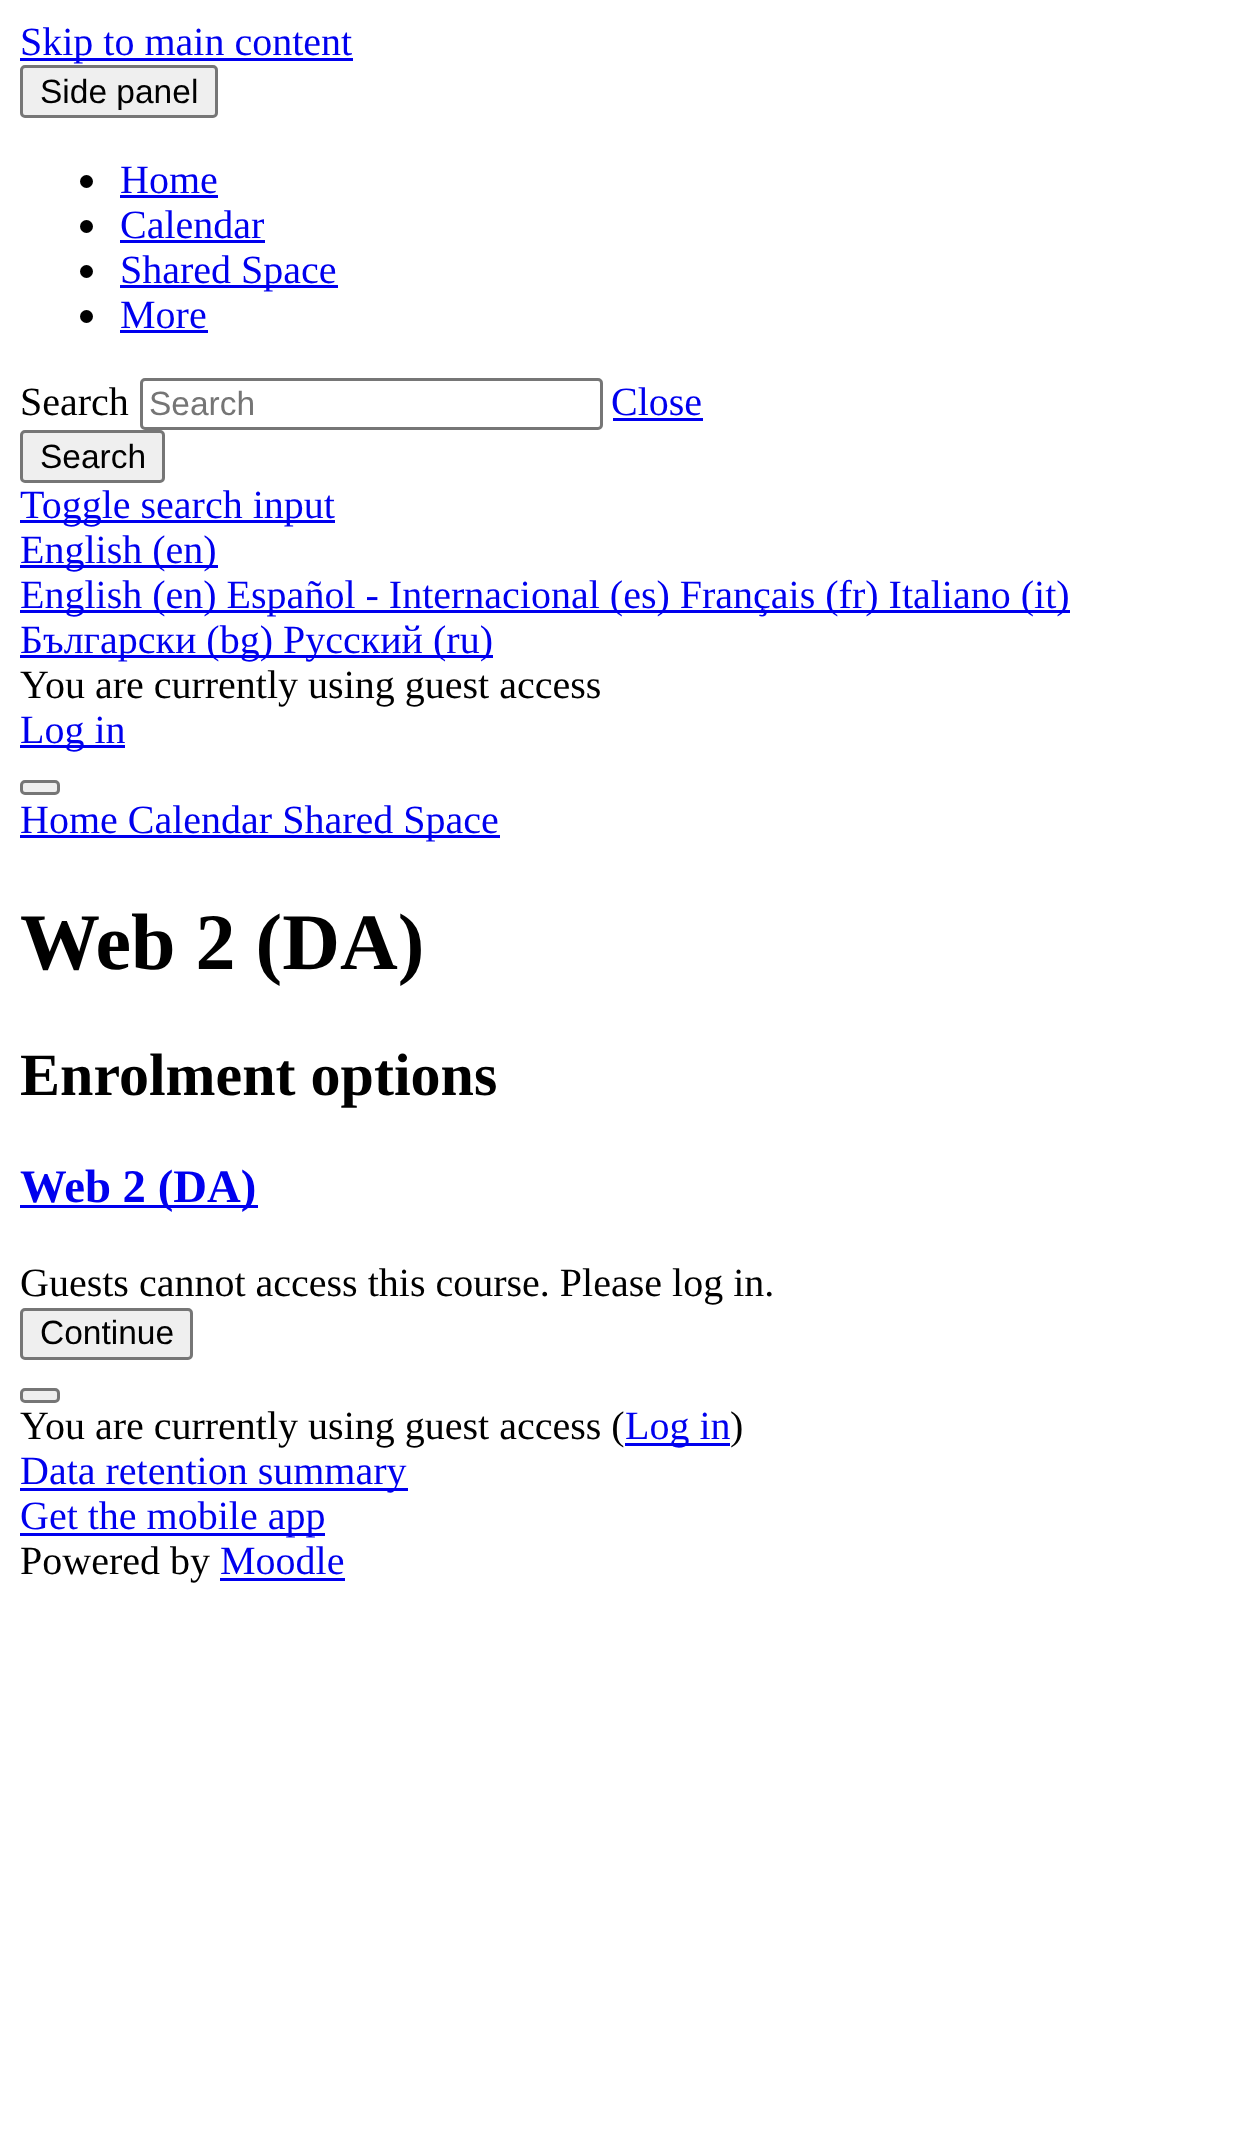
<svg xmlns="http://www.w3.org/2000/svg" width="1242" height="2142">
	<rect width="100%" height="100%" fill="#FFFFFF" />
	<rect x="20" y="58" width="333" height="3" fill="#0000EE" />
	<text x="20" y="55" font-family="Liberation Serif" font-size="40" fill="#0000EE">Skip to main content</text>
	<rect x="21.5" y="66.5" width="195" height="50" rx="3.5" fill="#EFEFEF" stroke="#767676" stroke-width="3" />
	<text x="40" y="103" font-family="Liberation Sans" font-size="33.5" fill="#000000">Side panel</text>
	<circle cx="86.5" cy="181.5" r="6.5" fill="#000000" />
	<text x="120" y="193" font-family="Liberation Serif" font-size="40" fill="#0000EE">Home</text>
	<rect x="120" y="195" width="98" height="3" fill="#0000EE" />
	<circle cx="86.5" cy="226.5" r="6.5" fill="#000000" />
	<text x="120" y="238" font-family="Liberation Serif" font-size="40" fill="#0000EE">Calendar</text>
	<rect x="120" y="240" width="145" height="3" fill="#0000EE" />
	<circle cx="86.5" cy="271.5" r="6.5" fill="#000000" />
	<rect x="120" y="285" width="218" height="3" fill="#0000EE" />
	<text x="120" y="283" font-family="Liberation Serif" font-size="40" fill="#0000EE">Shared Space</text>
	<circle cx="86.5" cy="316.5" r="6.5" fill="#000000" />
	<text x="120" y="328" font-family="Liberation Serif" font-size="40" fill="#0000EE">More</text>
	<rect x="120" y="330" width="88" height="3" fill="#0000EE" />
	<text x="20" y="415" font-family="Liberation Serif" font-size="40" fill="#000000">Search</text>
	<rect x="141.5" y="379.5" width="460" height="49" rx="3.5" fill="none" stroke="#767676" stroke-width="3" />
	<text x="149" y="415" font-family="Liberation Sans" font-size="33.5" fill="#757575">Search</text>
	<text x="611" y="415" font-family="Liberation Serif" font-size="40" fill="#0000EE">Close</text>
	<rect x="613" y="418" width="90" height="3" fill="#0000EE" />
	<rect x="21.5" y="431.5" width="142" height="50" rx="3.5" fill="#EFEFEF" stroke="#767676" stroke-width="3" />
	<text x="40" y="468" font-family="Liberation Sans" font-size="33.5" fill="#000000">Search</text>
	<rect x="20" y="520" width="315" height="3" fill="#0000EE" />
	<text x="20" y="518" font-family="Liberation Serif" font-size="40" fill="#0000EE">Toggle search input</text>
	<rect x="20" y="565" width="198" height="3" fill="#0000EE" />
	<text x="20" y="563" font-family="Liberation Serif" font-size="40" fill="#0000EE">English (en)</text>
	<rect x="20" y="610" width="1050" height="3" fill="#0000EE" />
	<text x="20" y="608" font-family="Liberation Serif" font-size="40" fill="#0000EE">English (en) Español - Internacional (es) Français (fr) Italiano (it)</text>
	<rect x="20" y="655" width="473" height="3" fill="#0000EE" />
	<text x="20" y="653" font-family="Liberation Serif" font-size="40" fill="#0000EE">Български (bg) Русский (ru)</text>
	<text x="20" y="698" font-family="Liberation Serif" font-size="40" fill="#000000">You are currently using guest access</text>
	<rect x="20" y="745" width="105" height="3" fill="#0000EE" />
	<text x="20" y="743" font-family="Liberation Serif" font-size="40" fill="#0000EE">Log in</text>
	<rect x="21.5" y="781.5" width="37" height="12" rx="3.5" fill="#EFEFEF" stroke="#767676" stroke-width="3" />
	<rect x="20" y="835" width="480" height="3" fill="#0000EE" />
	<text x="20" y="833" font-family="Liberation Serif" font-size="40" fill="#0000EE">Home Calendar Shared Space</text>
	<text x="20" y="969" font-family="Liberation Serif" font-size="80" font-weight="700" fill="#000000">Web 2 (DA)</text>
	<text x="20" y="1095" font-family="Liberation Serif" font-size="60" font-weight="700" fill="#000000">Enrolment options</text>
	<rect x="20" y="1205" width="238" height="3" fill="#0000EE" />
	<text x="20" y="1202" font-family="Liberation Serif" font-size="46.75" font-weight="700" fill="#0000EE">Web 2 (DA)</text>
	<text x="20" y="1296" font-family="Liberation Serif" font-size="40" fill="#000000">Guests cannot access this course. Please log in.</text>
	<rect x="21.5" y="1309.5" width="170" height="49" rx="3.5" fill="#EFEFEF" stroke="#767676" stroke-width="3" />
	<text x="40" y="1344" font-family="Liberation Sans" font-size="33.5" fill="#000000">Continue</text>
	<rect x="21.5" y="1389.5" width="37" height="12" rx="3.5" fill="#EFEFEF" stroke="#767676" stroke-width="3" />
	<text x="20" y="1439" font-family="Liberation Serif" font-size="40" fill="#000000">You are currently using guest access (</text>
	<rect x="625" y="1443" width="105" height="3" fill="#0000EE" />
	<text x="625" y="1439" font-family="Liberation Serif" font-size="40" fill="#0000EE">Log in</text>
	<text x="730" y="1439" font-family="Liberation Serif" font-size="40" fill="#000000">)</text>
	<rect x="20" y="1488" width="388" height="3" fill="#0000EE" />
	<text x="20" y="1484" font-family="Liberation Serif" font-size="40" fill="#0000EE">Data retention summary</text>
	<rect x="20" y="1533" width="305" height="3" fill="#0000EE" />
	<text x="20" y="1529" font-family="Liberation Serif" font-size="40" fill="#0000EE">Get the mobile app</text>
	<text x="20" y="1574" font-family="Liberation Serif" font-size="40" fill="#000000">Powered by</text>
	<text x="220" y="1574" font-family="Liberation Serif" font-size="40" fill="#0000EE">Moodle</text>
	<rect x="220" y="1578" width="125" height="3" fill="#0000EE" />
</svg>
